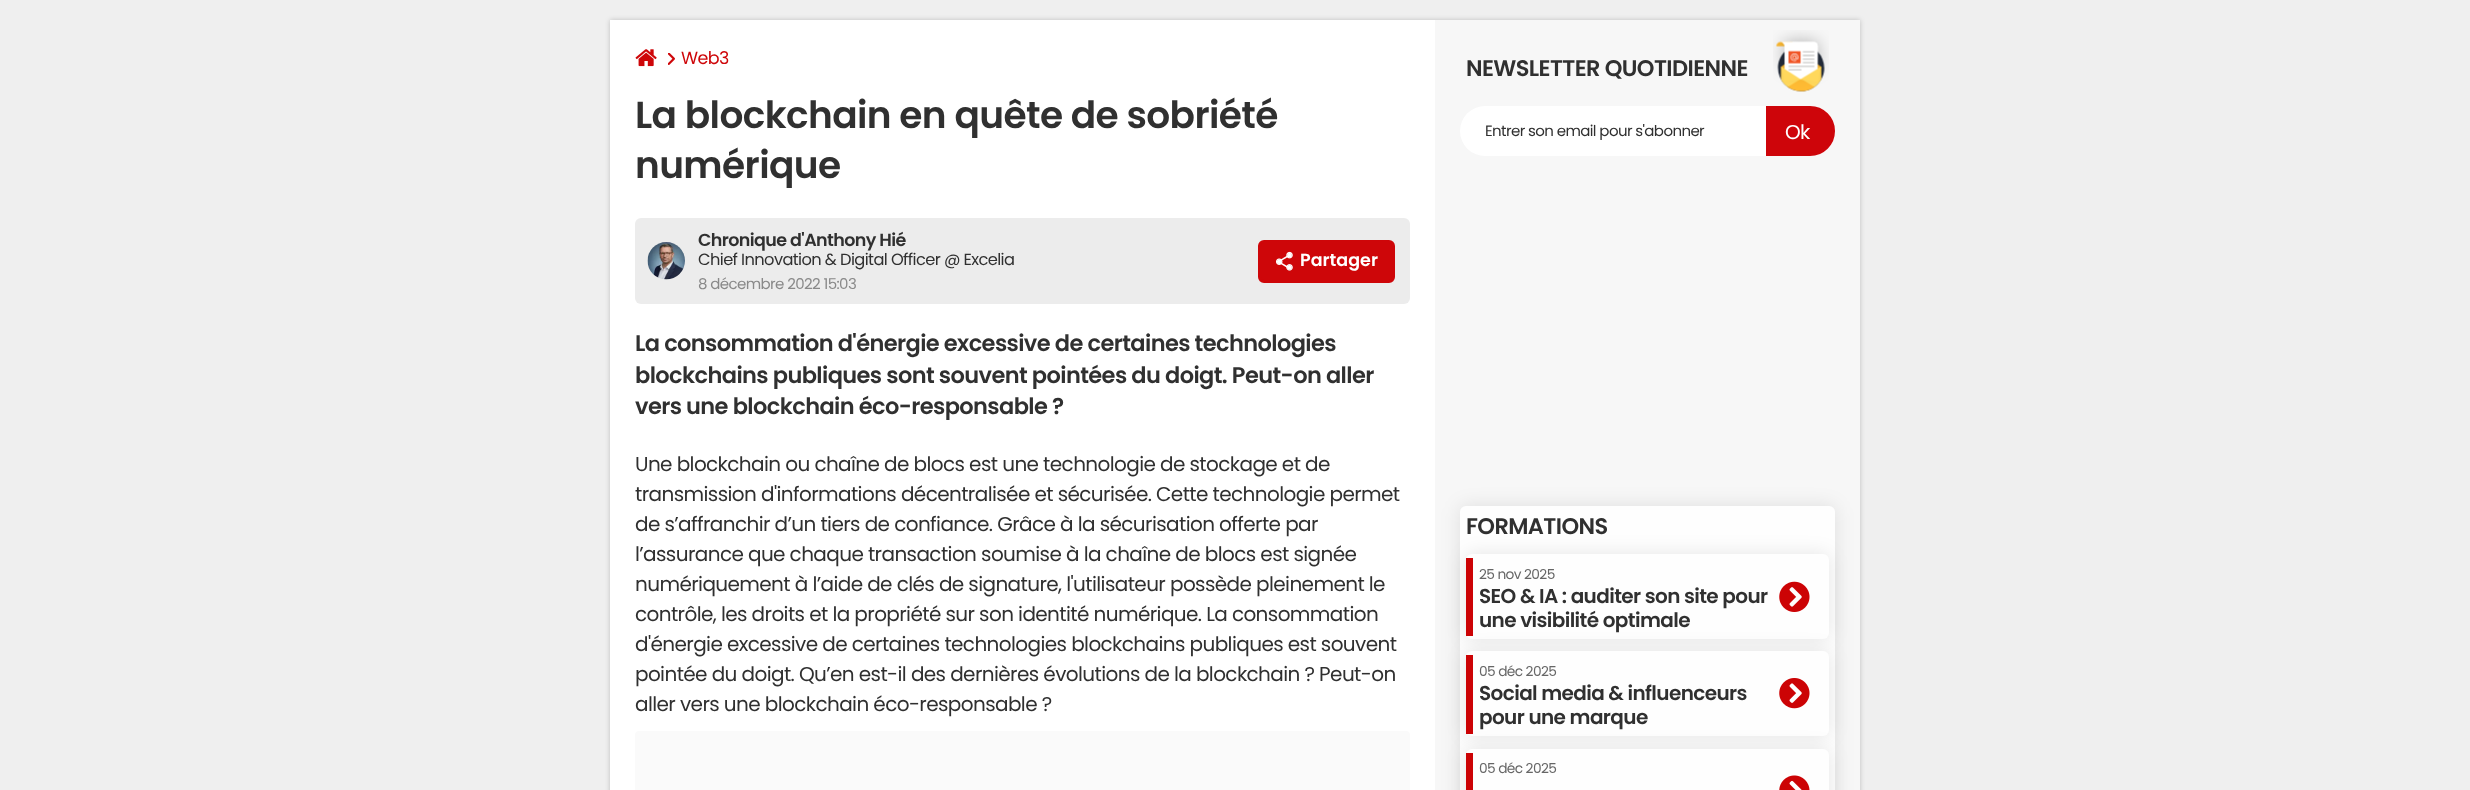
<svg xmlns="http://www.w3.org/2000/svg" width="2470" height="790">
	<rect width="100%" height="100%" fill="#EFEFEF" />
	<rect x="610" y="20" width="1250" height="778" fill="#000000" fill-opacity="0.2" filter="blur(2.5px)" />
	<rect x="1435" y="20" width="425" height="770" fill="#F7F7F7" />
	<rect x="610" y="20" width="825" height="770" fill="#FFFFFF" />
	<image x="635" y="49" width="22" height="18" href="assets/img1.png" />
	<image x="668" y="53" width="7" height="12" href="assets/img2.png" />
	<text x="681" y="64" font-family="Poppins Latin" font-size="17.5" letter-spacing="-0.6" fill="#CE0609">Web3</text>
	<g font-family="Poppins Latin" font-size="37.5" font-weight="600" letter-spacing="-0.6" fill="#303030">
		<text x="635" y="128">La blockchain en quête de sobriété</text>
		<text x="635" y="178">numérique</text>
	</g>
	<rect x="635" y="218" width="775" height="86" rx="6" fill="#ECECEC" />
	<image x="647" y="242" width="38" height="38" href="assets/img3.png" />
	<text x="698" y="246" font-family="Poppins Latin" font-size="17.5" font-weight="600" letter-spacing="-0.6" fill="#303030">Chronique d'Anthony Hié</text>
	<text x="698" y="265" font-family="Poppins Latin" font-size="16.25" letter-spacing="-0.6" fill="#303030">Chief Innovation &amp; Digital Officer @ Excelia</text>
	<text x="698" y="289" font-family="Poppins Latin" font-size="15" letter-spacing="-0.6" fill="#898989">8 décembre 2022 15:03</text>
	<rect x="1259.5" y="241.5" width="134" height="40" rx="4.5" fill="#CE0609" stroke="#CE0609" stroke-width="3" />
	<image x="1276" y="251" width="17" height="20" href="assets/img4.png" />
	<text x="1300" y="266" font-family="Poppins Latin" font-size="17.5" font-weight="600" fill="#FFFFFF">Partager</text>
	<g font-family="Poppins Latin" font-size="22.5" font-weight="600" letter-spacing="-0.6" fill="#303030">
		<text x="635" y="351">La consommation d'énergie excessive de certaines technologies</text>
		<text x="635" y="383">blockchains publiques sont souvent pointées du doigt. Peut-on aller</text>
		<text x="635" y="414">vers une blockchain éco-responsable ?</text>
	</g>
	<g font-family="Poppins Latin" font-size="20" letter-spacing="-0.6" fill="#303030">
		<text x="635" y="471">Une blockchain ou chaîne de blocs est une technologie de stockage et de</text>
		<text x="635" y="501">transmission d'informations décentralisée et sécurisée. Cette technologie permet</text>
		<text x="635" y="531">de s’affranchir d’un tiers de confiance. Grâce à la sécurisation offerte par</text>
		<text x="635" y="561">l’assurance que chaque transaction soumise à la chaîne de blocs est signée</text>
		<text x="635" y="591">numériquement à l’aide de clés de signature, l'utilisateur possède pleinement le</text>
		<text x="635" y="621">contrôle, les droits et la propriété sur son identité numérique. La consommation</text>
		<text x="635" y="651">d'énergie excessive de certaines technologies blockchains publiques est souvent</text>
		<text x="635" y="681">pointée du doigt. Qu’en est-il des dernières évolutions de la blockchain ? Peut-on</text>
		<text x="635" y="711">aller vers une blockchain éco-responsable ?</text>
	</g>
	<rect x="635" y="731" width="775" height="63" rx="4" fill="#FAFAFA" />
	<text x="1466" y="76" font-family="Poppins Latin" font-size="22.5" font-weight="600" letter-spacing="-0.6" fill="#303030">NEWSLETTER QUOTIDIENNE</text>
	<image x="1773" y="30" width="56" height="62" href="assets/img5.png" />
	<rect x="1460" y="106" width="375" height="50" rx="25" fill="#FFFFFF" />
	<text x="1485" y="136" font-family="Poppins Latin" font-size="15" letter-spacing="-0.6" fill="#303030">Entrer son email pour s'abonner</text>
	<path d="M1767.5 107.5H1810C1823 107.5 1833.5 118 1833.5 131C1833.5 144 1823 154.5 1810 154.5H1767.5Z" fill="#CE050A" stroke="#CE050A" stroke-width="3" />
	<text x="1785" y="139" font-family="Poppins Latin" font-size="20" letter-spacing="-0.6" fill="#FFFFFF">Ok</text>
	<rect x="1460" y="506" width="375" height="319" rx="6" fill="#000000" fill-opacity="0.1" filter="blur(9.5px)" />
	<rect x="1460" y="506" width="375" height="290" rx="6" fill="#FEFEFE" />
	<text x="1466" y="534" font-family="Poppins Latin" font-size="22.5" font-weight="600" letter-spacing="-0.6" fill="#303030">FORMATIONS</text>
	<rect x="1466" y="554" width="363" height="85" rx="6" fill="#000000" fill-opacity="0.1" filter="blur(9.5px)" />
	<rect x="1466" y="554" width="363" height="85" rx="6" fill="#FEFEFE" />
	<image x="1779" y="581" width="31" height="31" href="assets/img6.png" />
	<rect x="1466" y="558" width="7" height="78" fill="#CC0305" />
	<text x="1479" y="579" font-family="Poppins Latin" font-size="13.75" letter-spacing="-0.6" fill="#666666">25 nov 2025</text>
	<g font-family="Poppins Latin" font-size="20" font-weight="600" letter-spacing="-0.6" fill="#303030">
		<text x="1479" y="603">SEO &amp; IA : auditer son site pour</text>
		<text x="1479" y="627">une visibilité optimale</text>
	</g>
	<rect x="1466" y="651" width="363" height="85" rx="6" fill="#000000" fill-opacity="0.1" filter="blur(9.5px)" />
	<rect x="1466" y="651" width="363" height="85" rx="6" fill="#FEFEFE" />
	<image x="1779" y="678" width="31" height="31" href="assets/img7.png" />
	<rect x="1466" y="655" width="7" height="79" fill="#CC0305" />
	<text x="1479" y="676" font-family="Poppins Latin" font-size="13.75" letter-spacing="-0.6" fill="#666666">05 déc 2025</text>
	<g font-family="Poppins Latin" font-size="20" font-weight="600" letter-spacing="-0.6" fill="#303030">
		<text x="1479" y="700">Social media &amp; influenceurs</text>
		<text x="1479" y="724">pour une marque</text>
	</g>
	<rect x="1466" y="749" width="363" height="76" rx="6" fill="#000000" fill-opacity="0.1" filter="blur(9.5px)" />
	<rect x="1466" y="749" width="363" height="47" rx="6" fill="#FEFEFE" />
	<image x="1779" y="775" width="31" height="15" href="assets/img8.png" />
	<rect x="1466" y="753" width="7" height="37" fill="#CC0305" />
	<text x="1479" y="773" font-family="Poppins Latin" font-size="13.75" letter-spacing="-0.6" fill="#666666">05 déc 2025</text>
</svg>
